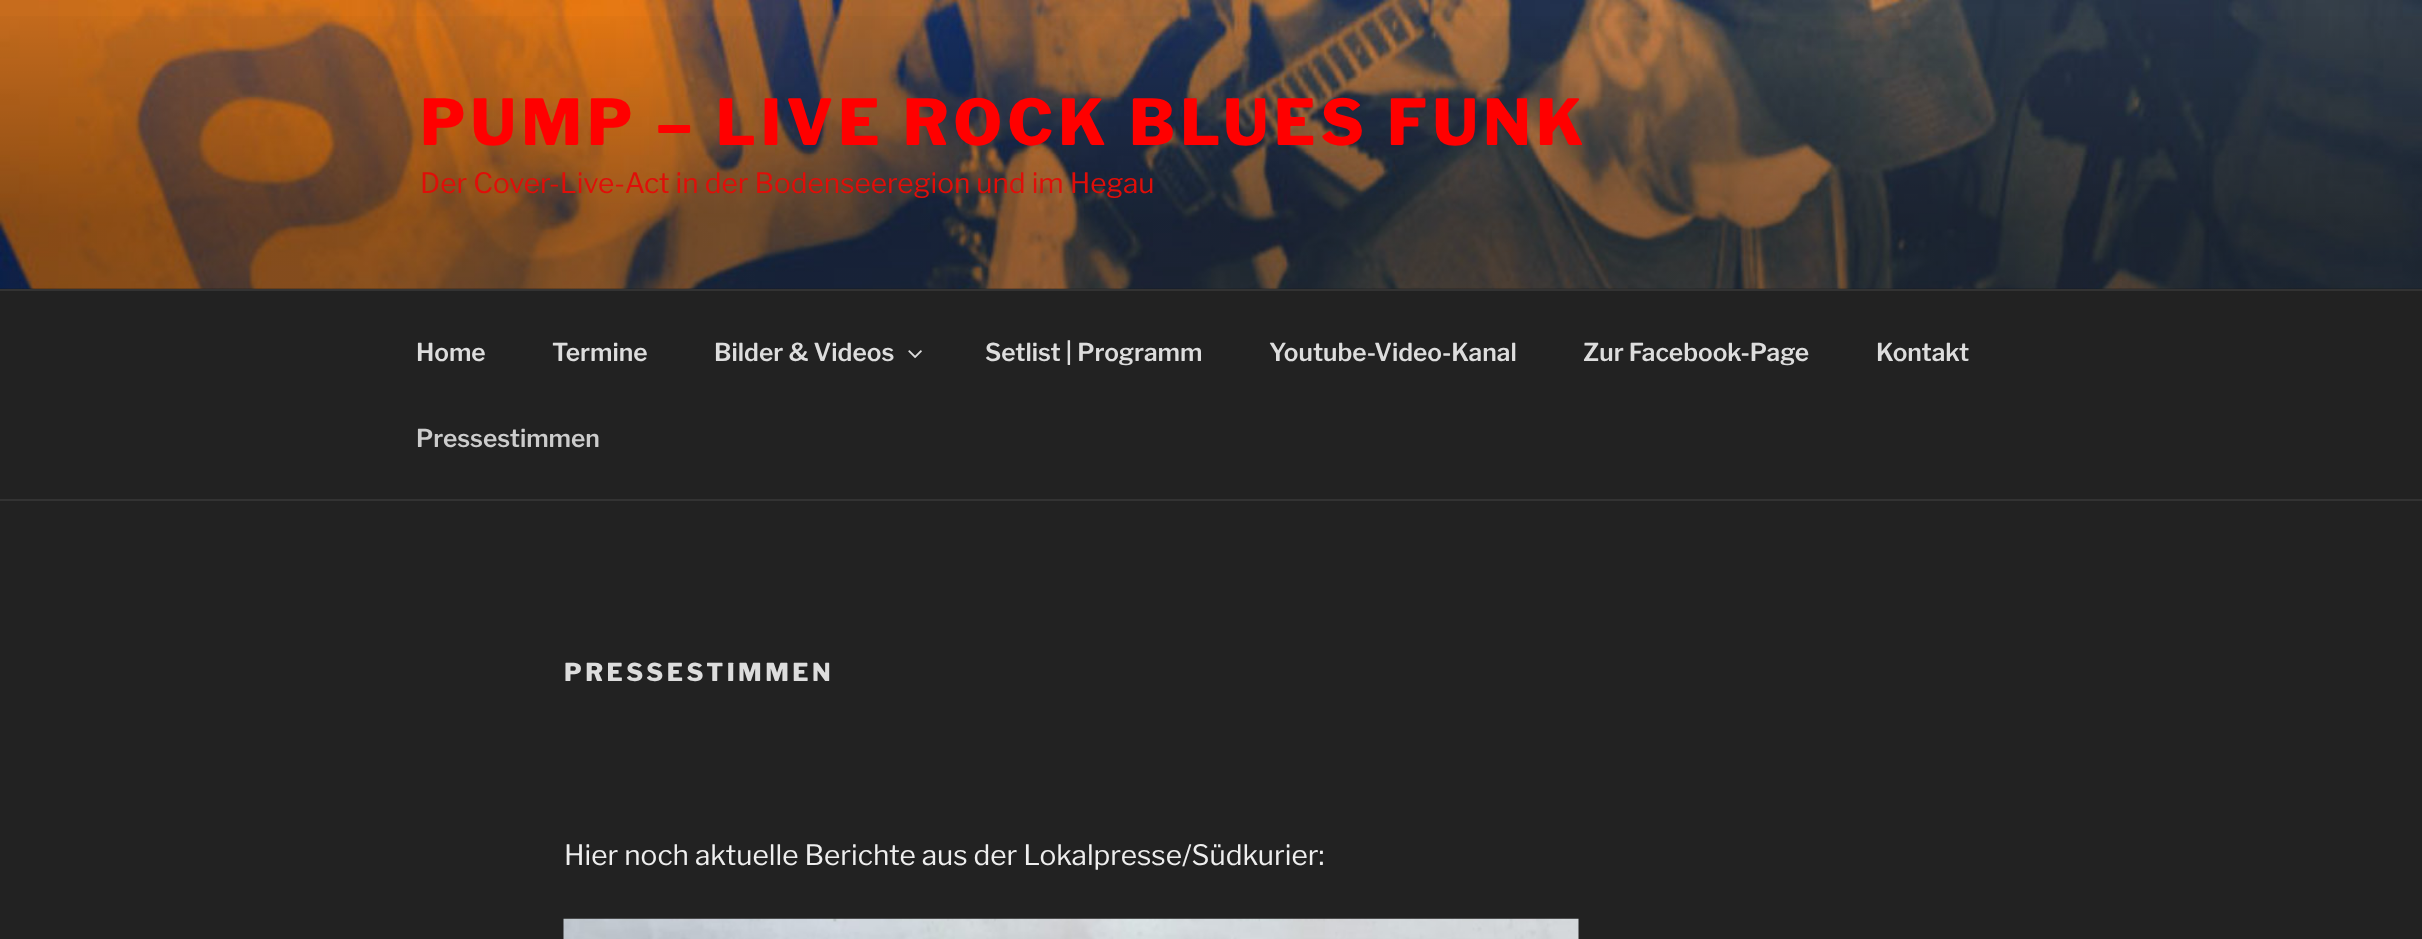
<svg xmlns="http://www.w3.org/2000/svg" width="2422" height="939">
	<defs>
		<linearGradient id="g1" gradientUnits="userSpaceOnUse" x1="1211" y1="0" x2="1211" y2="289"><stop offset="0" stop-color="#000000" stop-opacity="0" /><stop offset="0.75" stop-color="#000000" stop-opacity="0.3" /><stop offset="1" stop-color="#000000" stop-opacity="0.3" /></linearGradient>
	</defs>
	<rect width="100%" height="100%" fill="#222222" />
	<image x="0" y="0" width="2422" height="289" href="assets/img1.png" />
	<rect x="0" y="16" width="2422" height="273" fill="url(#g1)" />
	<text x="420" y="145" font-family="Libre Franklin" font-size="63" font-weight="800" letter-spacing="5.05" fill="#FF0000">PUMP – LIVE ROCK BLUES FUNK</text>
	<text x="420" y="193" font-family="Libre Franklin" font-size="28" fill="#E00E09">Der Cover-Live-Act in der Bodenseeregion und im Hegau</text>
	<rect x="0" y="289" width="2422" height="2" fill="#333333" />
	<rect x="0" y="499" width="2422" height="2" fill="#333333" />
	<g font-family="Libre Franklin" font-size="24.5" font-weight="600" fill="#DDDDDD">
		<text x="416" y="361">Home</text>
		<text x="552" y="361">Termine</text>
		<text x="714" y="361">Bilder &amp; Videos</text>
	</g>
	<image x="908" y="350" width="14" height="9" href="assets/img2.png" />
	<g font-family="Libre Franklin" font-size="24.5" font-weight="600" fill="#DDDDDD">
		<text x="985" y="361">Setlist | Programm</text>
		<text x="1269" y="361">Youtube-Video-Kanal</text>
		<text x="1583" y="361">Zur Facebook-Page</text>
		<text x="1876" y="361">Kontakt</text>
	</g>
	<text x="416" y="447" font-family="Libre Franklin" font-size="24.5" font-weight="600" fill="#CCCCCC">Pressestimmen</text>
	<text x="564" y="681" font-family="Libre Franklin" font-size="24.5" font-weight="800" letter-spacing="3.5" fill="#DDDDDD">PRESSESTIMMEN</text>
	<text x="564" y="865" font-family="Libre Franklin" font-size="28" fill="#EEEEEE">Hier noch aktuelle Berichte aus der Lokalpresse/Südkurier:</text>
	<image x="563" y="918" width="1016" height="21" href="assets/img3.png" />
</svg>
